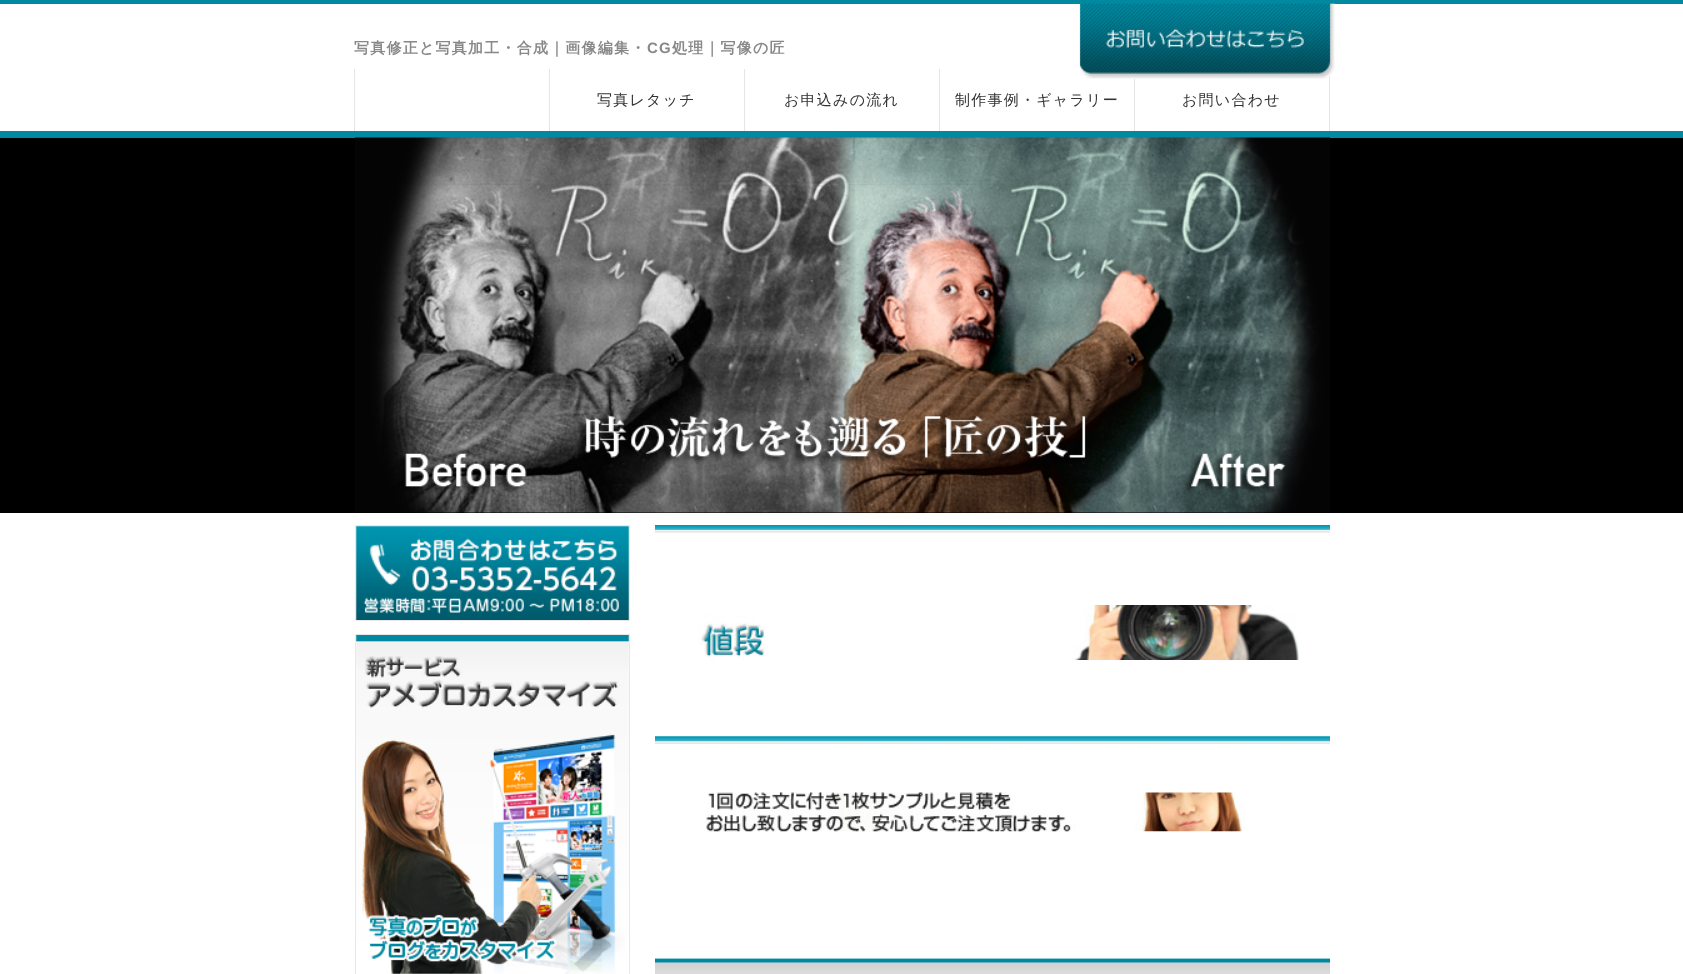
<svg xmlns="http://www.w3.org/2000/svg" width="1683" height="974">
	<rect width="100%" height="100%" fill="#FFFFFF" />
	<rect x="0" y="0" width="1683" height="4" fill="#0089A1" />
	<text x="354" y="53" font-family="WenQuanYi Zen Hei" font-size="15" font-weight="700" letter-spacing="1.25" fill="#888888">写真修正と写真加工・合成｜画像編集・</text>
	<text x="647" y="53" font-family="Liberation Sans" font-size="15" font-weight="700" letter-spacing="1.25" fill="#888888">CG</text>
	<text x="672" y="53" font-family="WenQuanYi Zen Hei" font-size="15" font-weight="700" letter-spacing="1.25" fill="#888888">処理｜写像の匠</text>
	<rect x="1329" y="69" width="1" height="62" fill="#E5E5E5" />
	<rect x="1134" y="78" width="1" height="53" fill="#E5E5E5" />
	<image x="1079" y="3" width="257" height="76" href="assets/img1.png" />
	<rect x="0" y="131" width="1683" height="7" fill="#0089A1" />
	<rect x="354" y="69" width="1" height="62" fill="#E5E5E5" />
	<rect x="549" y="69" width="1" height="62" fill="#E5E5E5" />
	<text x="597" y="105" font-family="WenQuanYi Zen Hei" font-size="15" font-weight="500" letter-spacing="1.25" fill="#333333">写真レタッチ</text>
	<rect x="744" y="69" width="1" height="62" fill="#E5E5E5" />
	<text x="784" y="105" font-family="WenQuanYi Zen Hei" font-size="15" font-weight="500" letter-spacing="1.25" fill="#333333">お申込みの流れ</text>
	<rect x="939" y="69" width="1" height="62" fill="#E5E5E5" />
	<g font-family="WenQuanYi Zen Hei" font-size="15" font-weight="500" letter-spacing="1.25" fill="#333333">
		<text x="955" y="105">制作事例・ギャラリー</text>
		<text x="1182" y="105">お問い合わせ</text>
	</g>
	<rect x="0" y="138" width="1683" height="375" fill="#000000" />
	<image x="355" y="137" width="975" height="376" href="assets/img2.png" />
	<rect x="355.5" y="525.5" width="274" height="95" fill="none" stroke="#E8E8E8" />
	<image x="356" y="526" width="273" height="94" href="assets/img3.png" />
	<rect x="355.5" y="634.5" width="274" height="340" fill="none" stroke="#E8E8E8" />
	<image x="356" y="635" width="273" height="339" href="assets/img4.png" />
	<image x="655" y="525" width="675" height="8" href="assets/img5.png" />
	<image x="699" y="605" width="600" height="55" href="assets/img6.png" />
	<image x="655" y="736" width="675" height="8" href="assets/img7.png" />
	<image x="706" y="792" width="539" height="40" href="assets/img8.png" />
	<image x="655" y="958" width="675" height="1" href="assets/img9.png" />
	<image x="655" y="958" width="675" height="16" href="assets/img10.png" />
</svg>
